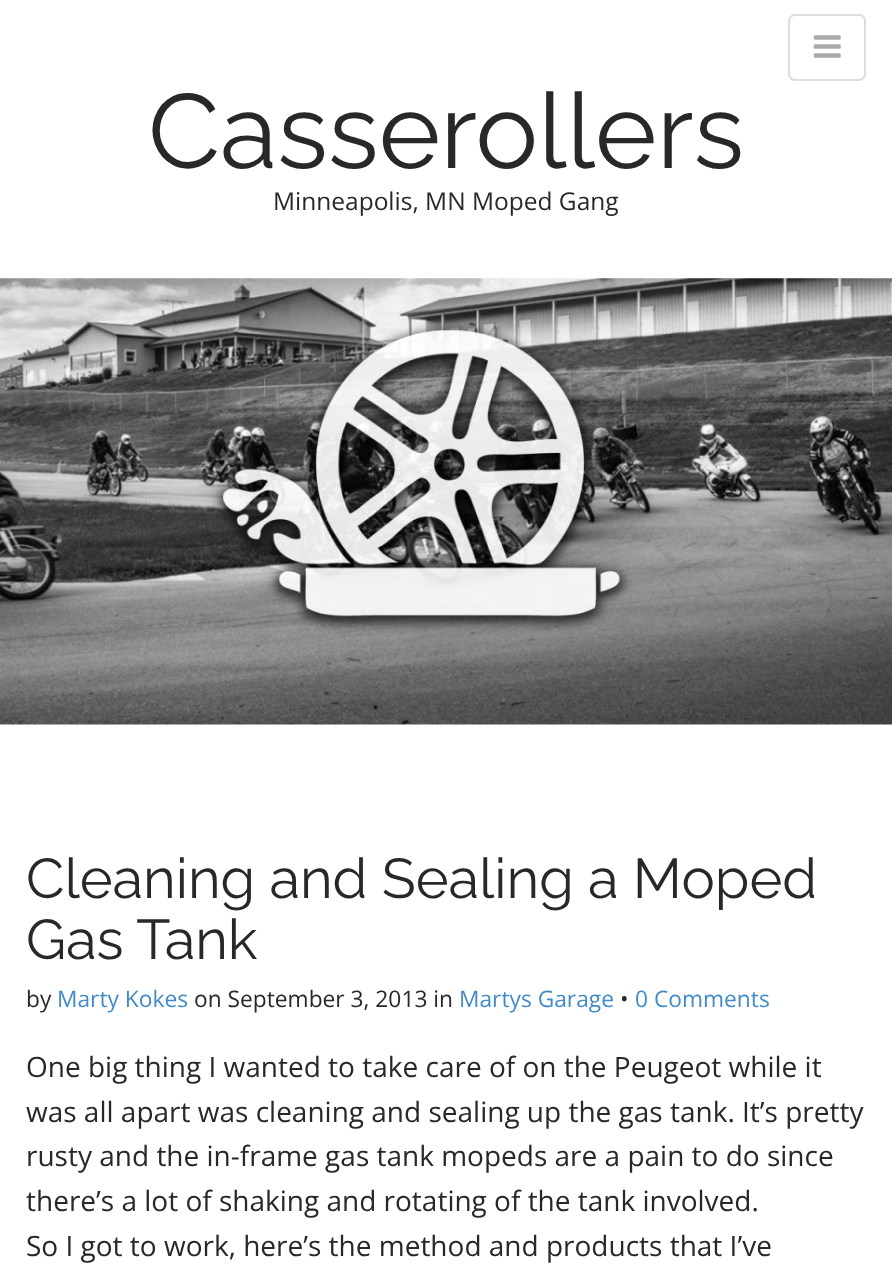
<svg xmlns="http://www.w3.org/2000/svg" width="892" height="1278">
	<rect width="100%" height="100%" fill="#FFFFFF" />
	<rect x="789" y="15" width="76" height="65" rx="6" fill="none" stroke="#DDDDDD" stroke-width="2" />
	<image x="813" y="35" width="28" height="23" href="assets/img1.png" />
	<text x="148" y="168" font-family="Raleway" font-size="105" font-weight="100" fill="#282828">Casserollers</text>
	<text x="273" y="210" font-family="Open Sans" font-size="24.5" fill="#282828">Minneapolis, MN Moped Gang</text>
	<image x="0" y="278" width="892" height="447" href="assets/img2.png" />
	<g font-family="Raleway" font-size="56" font-weight="100" fill="#282828">
		<text x="26" y="898">Cleaning and Sealing a Moped</text>
		<text x="26" y="959">Gas Tank</text>
	</g>
	<text x="26" y="1007" font-family="Open Sans" font-size="22.75" fill="#282828">by</text>
	<text x="57" y="1007" font-family="Open Sans" font-size="22.75" fill="#428BCA">Marty Kokes</text>
	<text x="194" y="1007" font-family="Open Sans" font-size="22.75" fill="#282828">on September 3, 2013 in</text>
	<text x="459" y="1007" font-family="Open Sans" font-size="22.75" fill="#428BCA">Martys Garage</text>
	<text x="620" y="1007" font-family="Open Sans" font-size="22.75" fill="#282828">•</text>
	<text x="635" y="1007" font-family="Open Sans" font-size="22.75" fill="#428BCA">0 Comments</text>
	<g font-family="Open Sans" font-size="28" fill="#282828">
		<text x="26" y="1077">One big thing I wanted to take care of on the Peugeot while it</text>
		<text x="26" y="1122">was all apart was cleaning and sealing up the gas tank. It’s pretty</text>
		<text x="26" y="1166">rusty and the in-frame gas tank mopeds are a pain to do since</text>
		<text x="26" y="1211">there’s a lot of shaking and rotating of the tank involved.</text>
		<text x="26" y="1256">So I got to work, here’s the method and products that I’ve</text>
	</g>
</svg>
